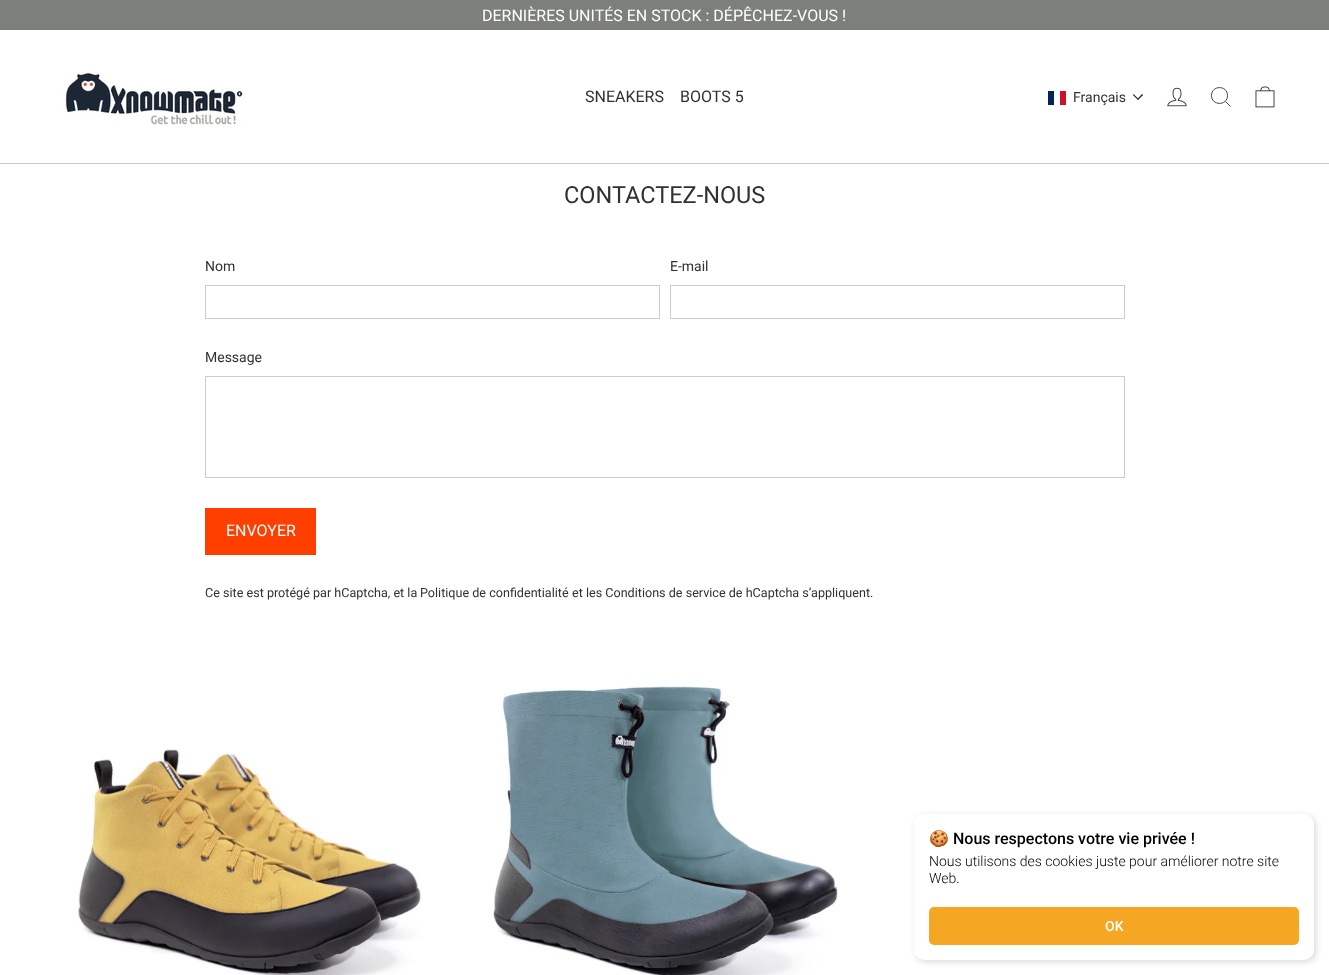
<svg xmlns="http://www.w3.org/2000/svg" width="1329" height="975">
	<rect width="100%" height="100%" fill="#FFFFFF" />
	<rect x="0" y="0" width="1329" height="30" fill="#7D7F7D" />
	<text x="482" y="21" font-family="Roboto" font-size="16" fill="#FFFFFF">DERNIÈRES UNITÉS EN STOCK : DÉPÊCHEZ-VOUS !</text>
	<rect x="0" y="163" width="1329" height="1" fill="#CACECA" />
	<image x="63" y="72" width="180" height="56" href="assets/img1.png" />
	<g font-family="Roboto" font-size="16" fill="#303130">
		<text x="585" y="102">SNEAKERS</text>
		<text x="680" y="102">BOOTS 5</text>
	</g>
	<rect x="1048" y="91" width="6" height="14" fill="#002654" />
	<rect x="1060" y="91" width="6" height="14" fill="#CE1126" />
	<text x="1073" y="102" font-family="Roboto" font-size="14" fill="#303130">Français</text>
	<path d="M1142 94L1143 95L1138 100L1137.5 99Z" fill="#1A1A1A" />
	<path d="M1133.5 94L1138.5 99L1138 100L1133 95Z" fill="#1A1A1A" />
	<image x="1167" y="87" width="20" height="20" href="assets/img2.png" />
	<path d="M1227.5 95.5C1227.5 106 1211.5 106 1211.5 95.5C1211.5 85 1227.5 85 1227.5 95.5ZM1230.5 106.5L1225.5 101.5" fill="none" stroke="#303130" stroke-width="0.9" />
	<image x="1255" y="86" width="20" height="22" href="assets/img3.png" />
	<text x="564" y="203" font-family="Roboto" font-size="23.5" fill="#303130">CONTACTEZ-NOUS</text>
	<text x="205" y="271" font-family="Roboto" font-size="14" fill="#303130">Nom</text>
	<rect x="205.5" y="285.5" width="454" height="33" fill="none" stroke="#CACECA" />
	<text x="670" y="271" font-family="Roboto" font-size="14" fill="#303130">E-mail</text>
	<rect x="670.5" y="285.5" width="454" height="33" fill="none" stroke="#CACECA" />
	<text x="205" y="362" font-family="Roboto" font-size="14" fill="#303130">Message</text>
	<rect x="205.5" y="376.5" width="919" height="101" fill="none" stroke="#CACECA" />
	<rect x="205" y="508" width="111" height="47" fill="#FF3F00" />
	<text x="226" y="536" font-family="Roboto" font-size="16" fill="#FFFFFF">ENVOYER</text>
	<g font-family="Roboto" font-size="12.6" fill="#303130">
		<text x="205" y="597">Ce site est protégé par hCaptcha, et la</text>
		<text x="420" y="597">Politique de confidentialité</text>
		<text x="572" y="597">et les Conditions de service de hCaptcha s’appliquent.</text>
	</g>
	<image x="78" y="749" width="343" height="226" href="assets/img4.png" />
	<image x="493" y="686" width="345" height="289" href="assets/img5.png" />
	<rect x="916" y="816" width="400" height="146" rx="10" fill="#000000" fill-opacity="0.15" filter="blur(3px)" />
	<rect x="914" y="814" width="400" height="146" rx="10" fill="#FFFFFF" />
	<text x="929" y="844" font-family="Noto Color Emoji" font-size="16" fill="#000000">🍪</text>
	<text x="953" y="844" font-family="Roboto" font-size="16" font-weight="500" fill="#000000">Nous respectons votre vie privée !</text>
	<g font-family="Roboto" font-size="14" font-weight="300" fill="#000000">
		<text x="929" y="866">Nous utilisons des cookies juste pour améliorer notre site</text>
		<text x="929" y="883">Web.</text>
	</g>
	<rect x="929" y="907" width="370" height="38" rx="5" fill="#F5A623" />
	<text x="1105" y="931" font-family="Roboto" font-size="14" font-weight="500" fill="#FFFFFF">OK</text>
</svg>
